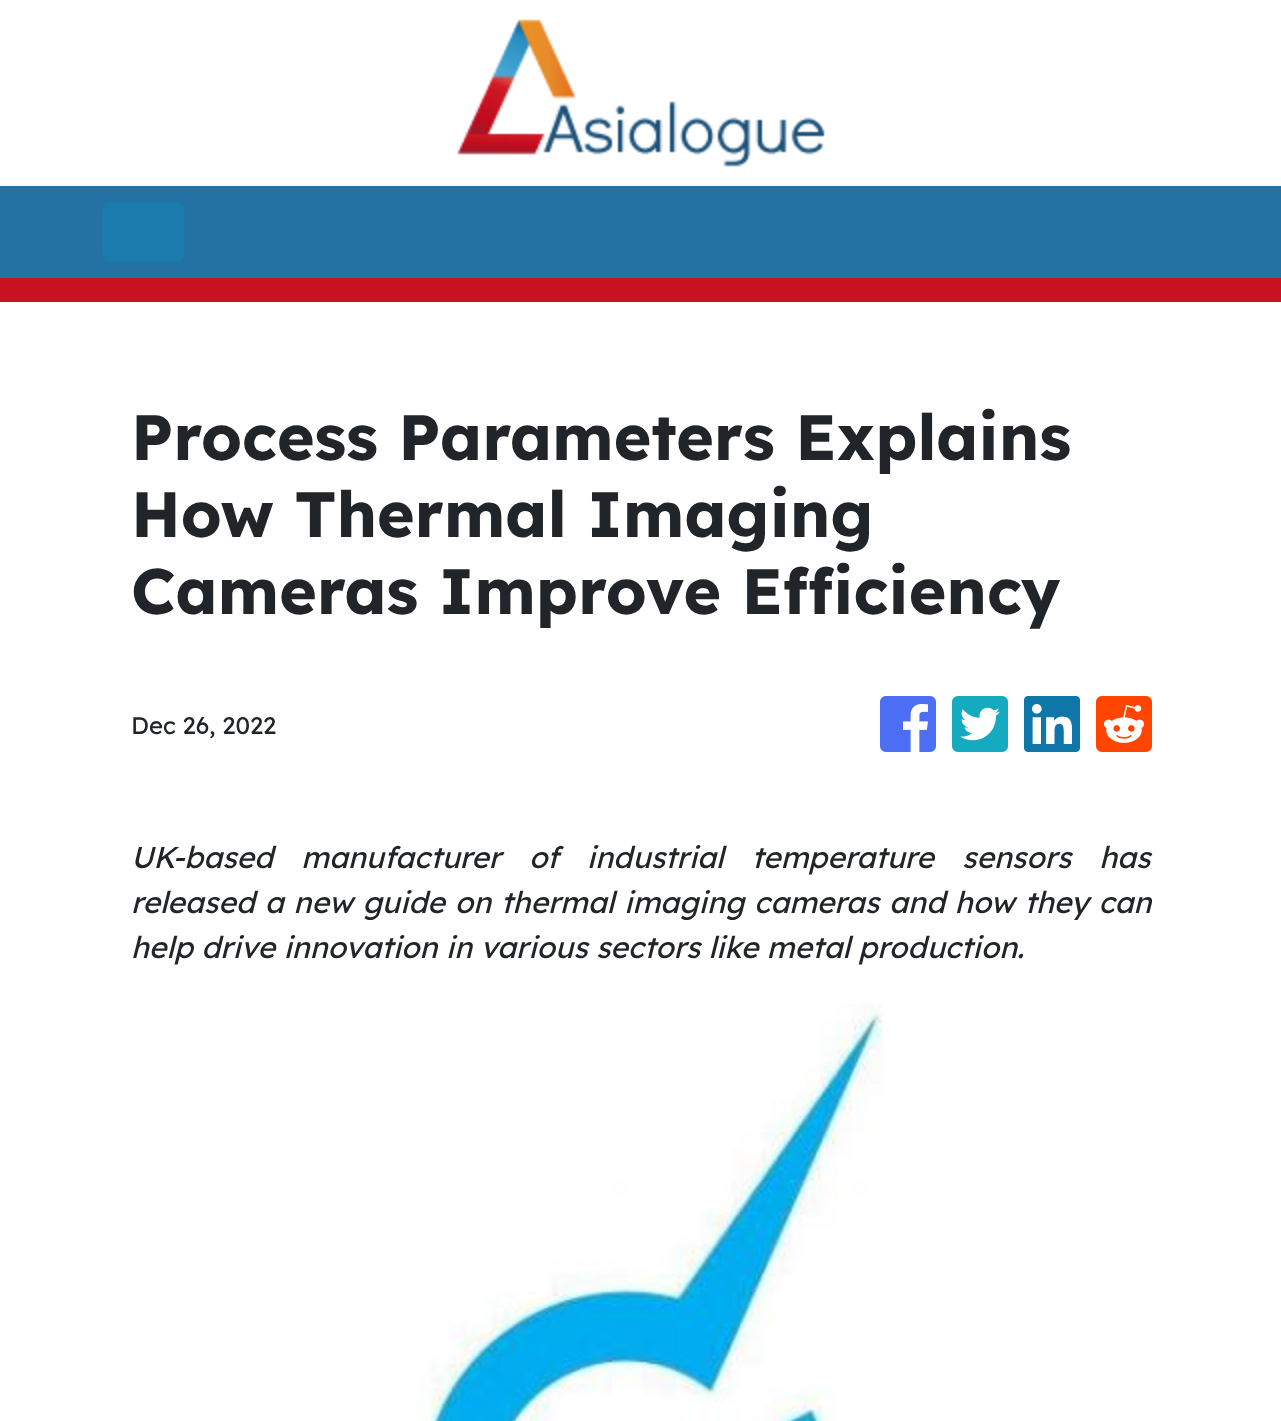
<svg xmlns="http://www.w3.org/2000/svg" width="1281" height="1421">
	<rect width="100%" height="100%" fill="#FFFFFF" />
	<image x="457" y="19" width="368" height="148" href="assets/img1.png" />
	<rect x="0" y="186" width="1281" height="92" fill="#2471A3" />
	<rect x="0" y="278" width="1281" height="24" fill="#CA1322" />
	<rect x="102" y="202" width="82" height="60" rx="8" fill="#1C7BAD" />
	<g font-family="Lexend Deca" font-size="64" font-weight="700" fill="#212529">
		<text x="131" y="460">Process Parameters Explains</text>
		<text x="131" y="537">How Thermal Imaging</text>
		<text x="131" y="614">Cameras Improve Efficiency</text>
	</g>
	<text x="131" y="734" font-family="Lexend Deca" font-size="24" fill="#212529">Dec 26, 2022</text>
	<image x="880" y="696" width="56" height="56" href="assets/img2.png" />
	<image x="952" y="696" width="56" height="56" href="assets/img3.png" />
	<image x="1024" y="696" width="56" height="56" href="assets/img4.png" />
	<image x="1096" y="696" width="56" height="56" href="assets/img5.png" />
	<g font-family="Lexend Deca" font-size="30" font-style="italic" fill="#212529">
		<text x="131" y="868" word-spacing="19.75">UK-based manufacturer of industrial temperature sensors has</text>
		<text x="131" y="913" word-spacing="1.5">released a new guide on thermal imaging cameras and how they can</text>
		<text x="131" y="958">help drive innovation in various sectors like metal production.</text>
	</g>
	<image x="419" y="1004" width="465" height="417" href="assets/img6.png" />
</svg>
